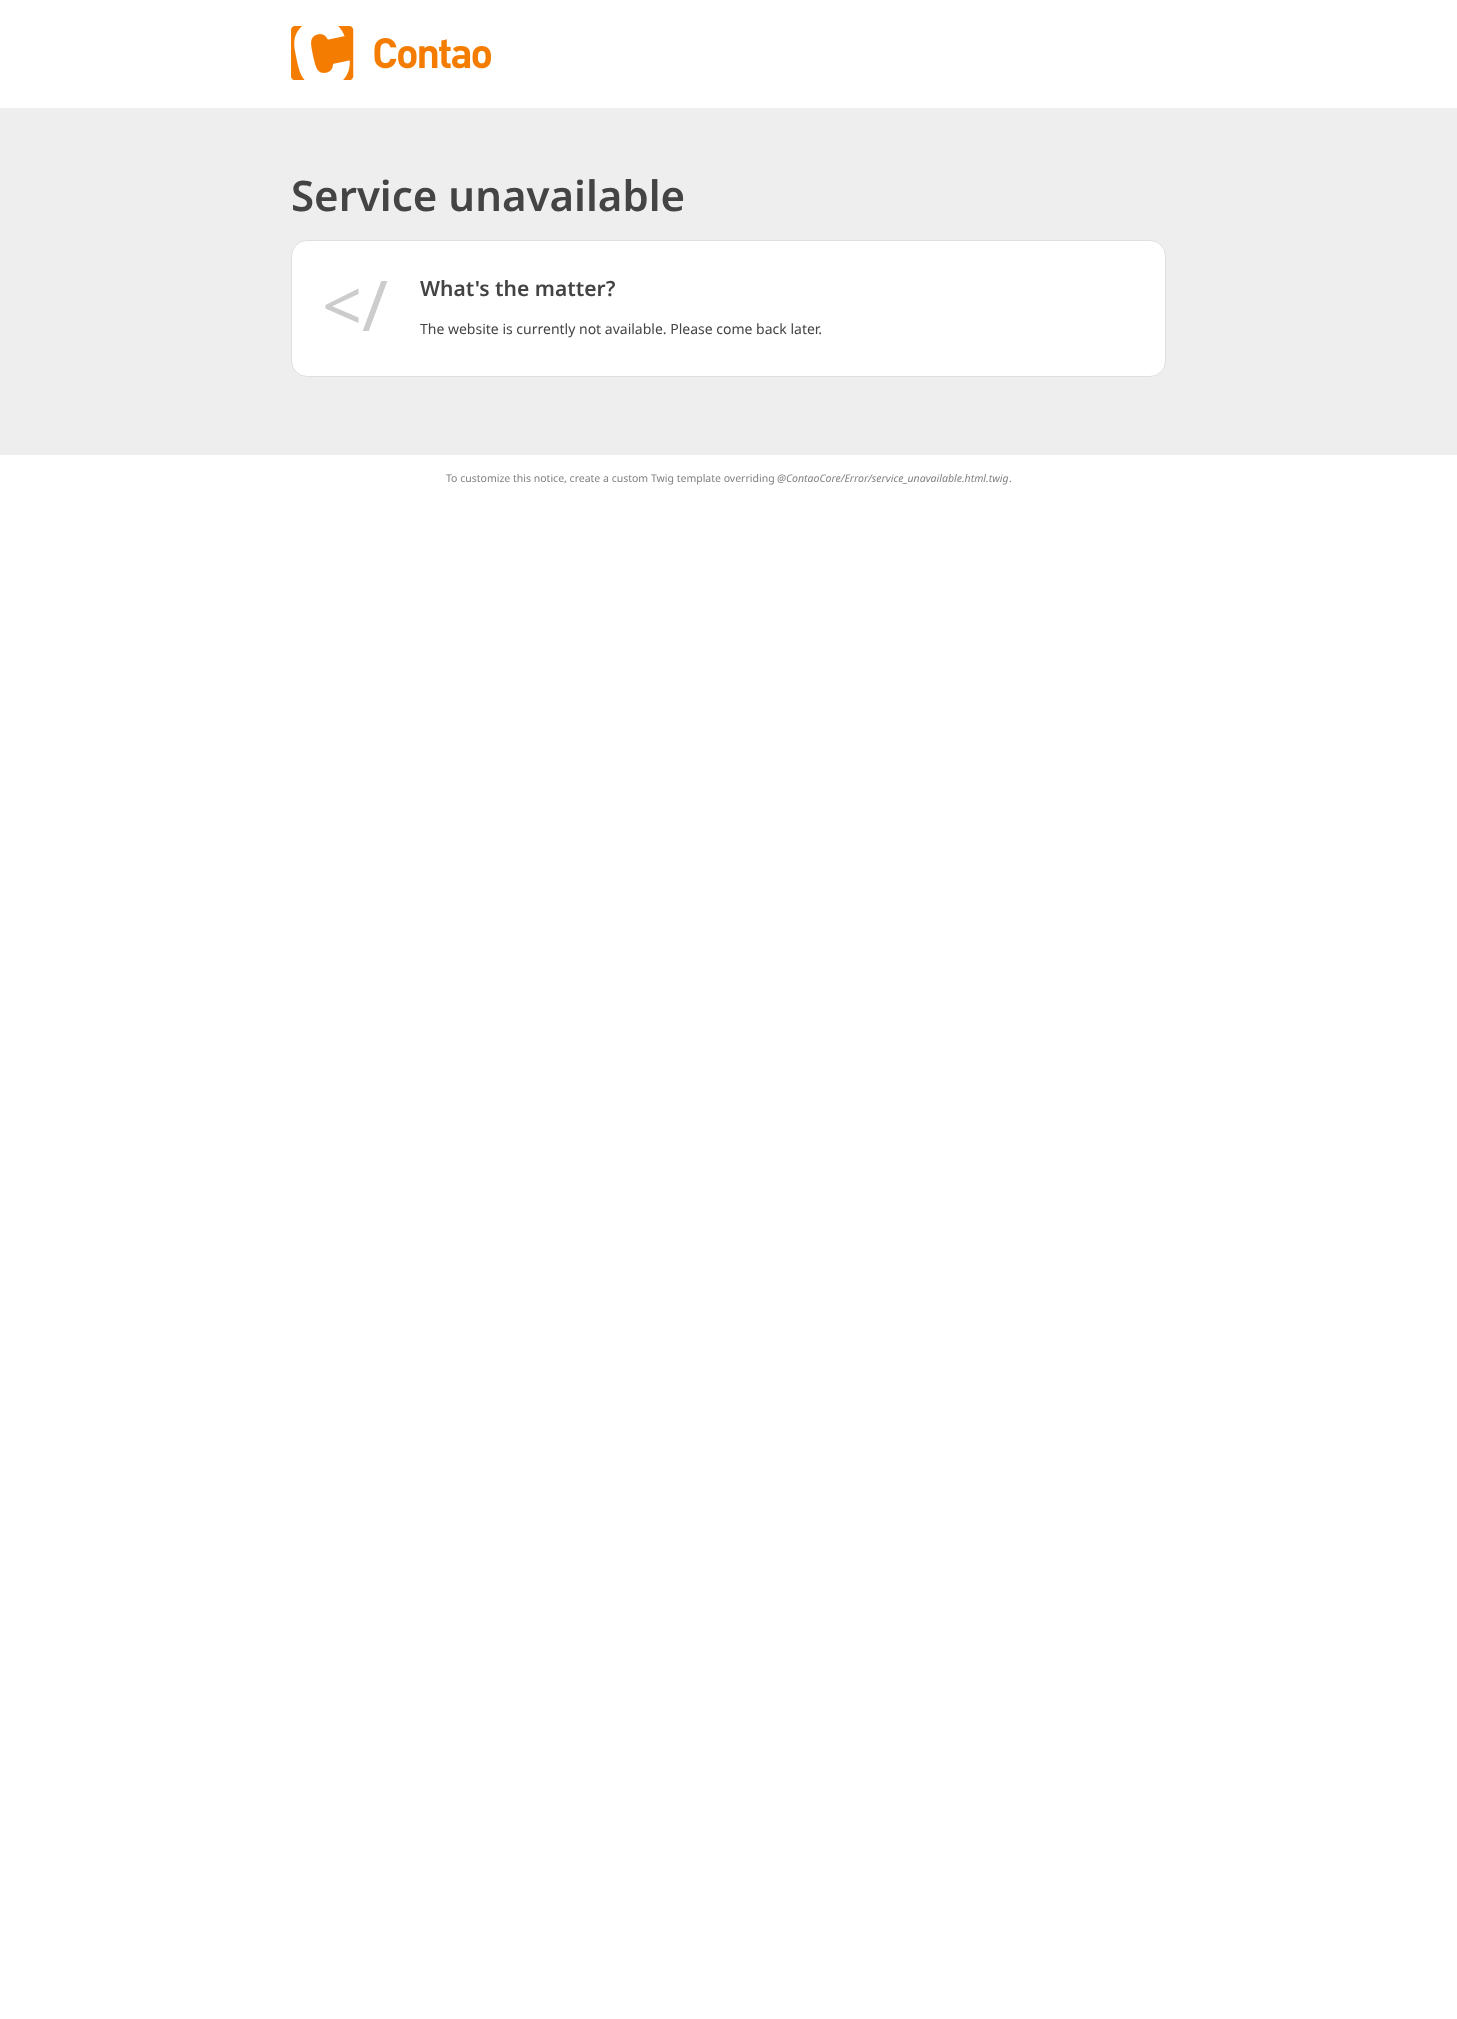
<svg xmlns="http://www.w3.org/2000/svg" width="1457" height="2019">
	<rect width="100%" height="100%" fill="#FFFFFF" />
	<image x="291" y="26" width="200" height="54" href="assets/img1.png" />
	<rect x="0" y="108" width="1457" height="347" fill="#EEEEEE" />
	<text x="291" y="211" font-family="Noto Sans" font-size="42" font-weight="600" fill="#444444">Service unavailable</text>
	<rect x="291.5" y="240.5" width="874" height="136" rx="15.5" fill="#FFFFFF" stroke="#DFDFDF" />
	<text x="322" y="331" font-family="Noto Sans" font-size="70" fill="#CCCCCC">&lt;/</text>
	<text x="420" y="296" font-family="Noto Sans" font-size="21" font-weight="600" fill="#444444">What's the matter?</text>
	<text x="420" y="334" font-family="Noto Sans" font-size="14" fill="#444444">The website is currently not available. Please come back later.</text>
	<text x="446" y="482" font-family="Noto Sans" font-size="10.5" fill="#808080">To customize this notice, create a custom Twig template overriding</text>
	<text x="777" y="482" font-family="Noto Sans" font-size="10.5" font-style="italic" fill="#808080">@ContaoCore/Error/service_unavailable.html.twig</text>
	<text x="1009" y="482" font-family="Noto Sans" font-size="10.5" fill="#808080">.</text>
</svg>
